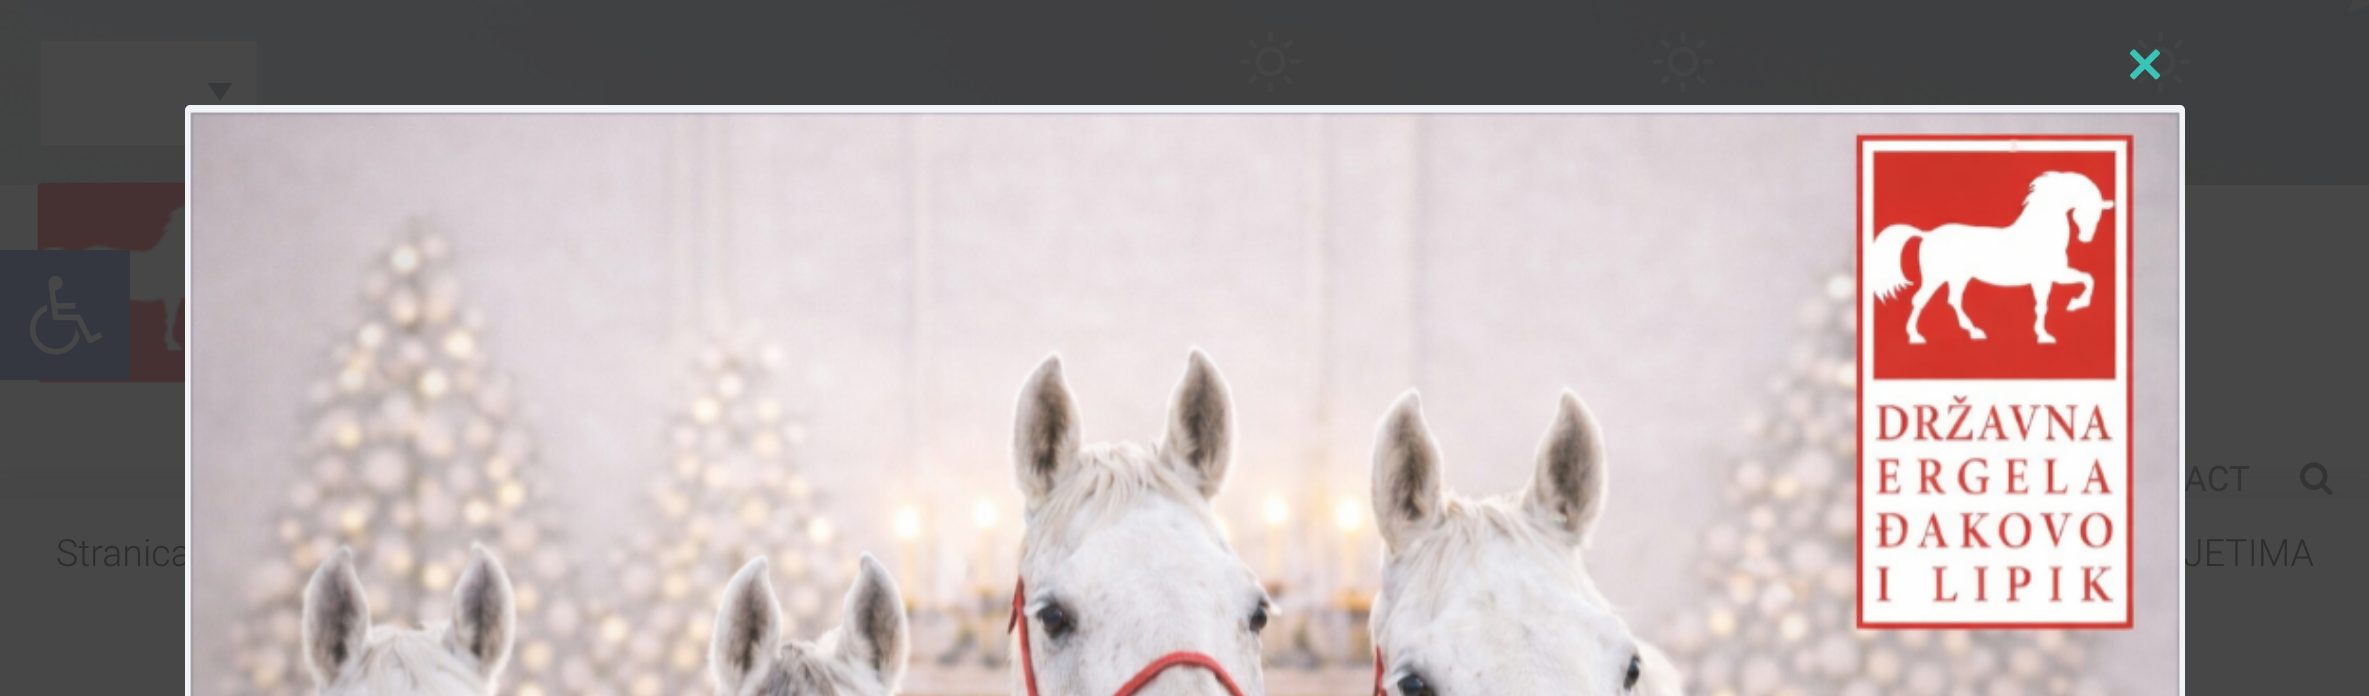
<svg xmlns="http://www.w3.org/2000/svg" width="2369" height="696">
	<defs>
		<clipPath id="clip1"><rect x="208" y="83" width="50" height="20" /></clipPath>
	</defs>
	<rect width="100%" height="100%" fill="#FFFFFF" />
	<rect x="0" y="185" width="2369" height="313" fill="#474747" />
	<image x="0" y="0" width="2369" height="185" href="assets/img4.png" />
	<rect x="0" y="0" width="2369" height="185" fill="#2E2E2E" fill-opacity="0.15" />
	<image x="37" y="182" width="148" height="201" href="assets/img8.png" />
	<rect x="0" y="250" width="130" height="130" fill="#343640" />
	<image x="29" y="276" width="74" height="79" href="assets/img1.png" />
	<image x="2130" y="31" width="61" height="62" href="assets/img7.png" />
	<image x="2130" y="49" width="30" height="31" href="assets/img2.png" />
	<rect x="38" y="38" width="222" height="110" rx="5" fill="#474747" />
	<g clip-path="url(#clip1)">
		<path d="M207.5 82.5H232.5L220 101Z" fill="#38393A" fill-rule="evenodd" />
	</g>
	<rect x="39.5" y="39.5" width="219" height="107" rx="3.5" fill="none" stroke="#38393A" stroke-opacity="0.25" stroke-width="3" />
	<rect x="185" y="105" width="2000" height="5" fill="#35414A" />
	<text x="2184" y="491" font-family="Roboto" font-size="35" fill="#333434">ACT</text>
	<image x="2300" y="462" width="33" height="33" href="assets/img9.png" />
	<rect x="0" y="495" width="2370" height="200" fill="#3F3F3F" fill-opacity="0.3" filter="blur(12.5px)" />
	<rect x="0" y="498" width="2369" height="198" fill="#474747" />
	<g font-family="Roboto" font-size="37.5" font-weight="300" fill="#2E2E2E">
		<text x="56" y="566">Stranica</text>
		<text x="2183" y="566">JETIMA</text>
	</g>
	<image x="185" y="105" width="2000" height="591" href="assets/img3.png" />
	<image x="1240" y="31" width="61" height="62" href="assets/img5.png" />
	<image x="1652" y="31" width="62" height="62" href="assets/img6.png" />
</svg>
